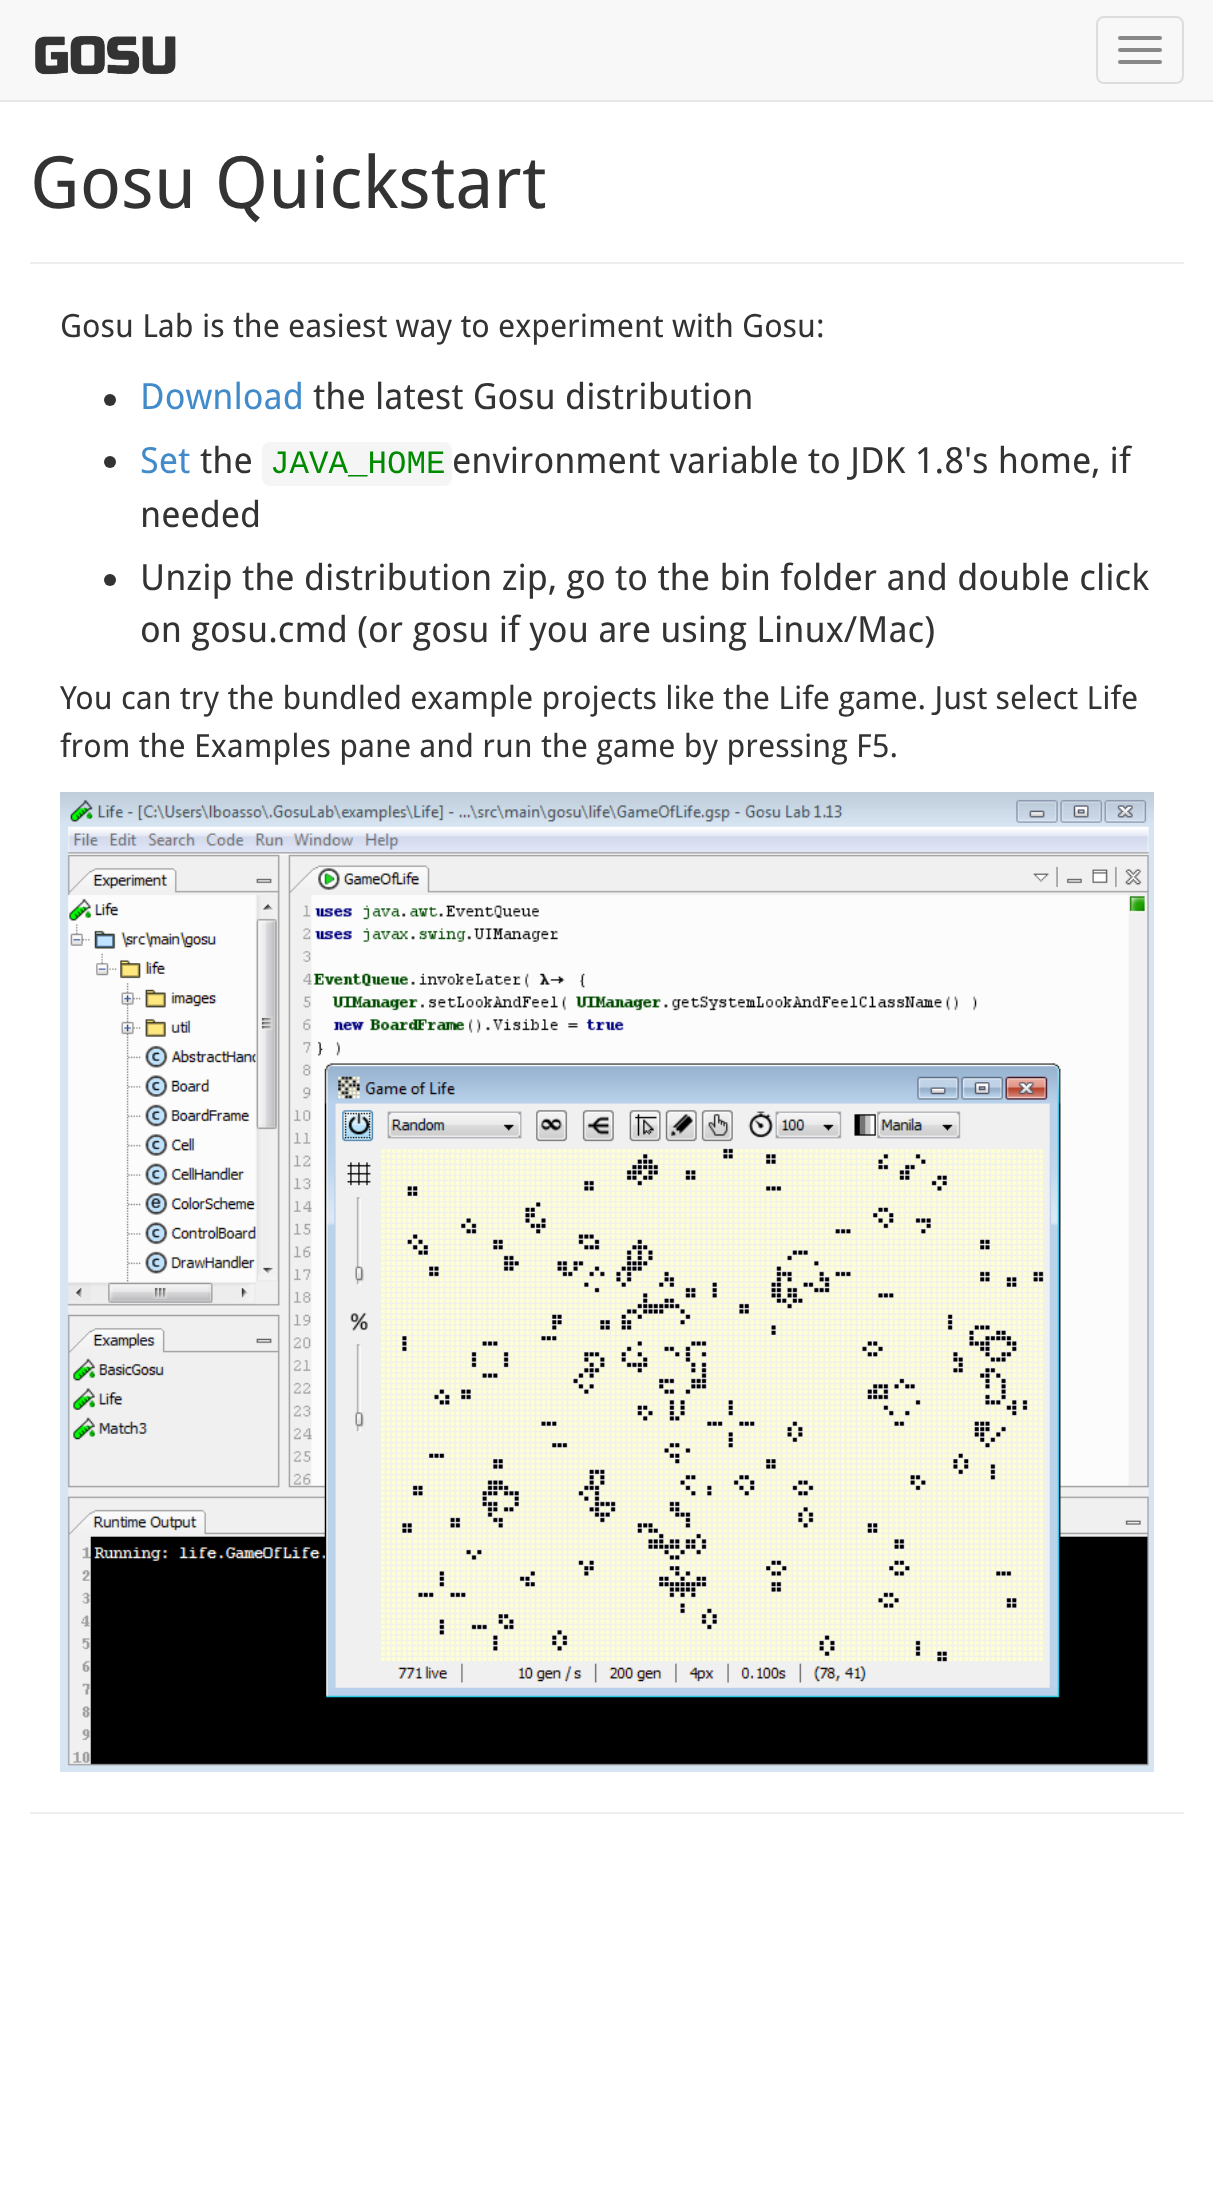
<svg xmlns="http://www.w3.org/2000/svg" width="1213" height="2191">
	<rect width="100%" height="100%" fill="#FFFFFF" />
	<rect x="0" y="0" width="1213" height="100" fill="#F8F8F8" />
	<rect x="0" y="100" width="1213" height="2" fill="#E7E7E7" />
	<image x="35" y="35" width="141" height="40" href="assets/img1.png" />
	<rect x="1097" y="17" width="86" height="66" rx="7" fill="none" stroke="#DDDDDD" stroke-width="2" />
	<rect x="1118" y="36" width="44" height="4" rx="2" fill="#888888" />
	<rect x="1118" y="48" width="44" height="4" rx="2" fill="#888888" />
	<rect x="1118" y="60" width="44" height="4" rx="2" fill="#888888" />
	<rect x="30" y="262" width="1154" height="2" fill="#EEEEEE" />
	<text x="30" y="208" font-family="Droid Sans" font-size="72" fill="#333333">Gosu Quickstart</text>
	<text x="60" y="337" font-family="Droid Sans" font-size="32" fill="#333333">Gosu Lab is the easiest way to experiment with Gosu:</text>
	<circle cx="110" cy="400" r="6" fill="#333333" />
	<text x="140" y="409" font-family="Droid Sans" font-size="36" fill="#428BCA">Download</text>
	<text x="313" y="409" font-family="Droid Sans" font-size="36" fill="#333333">the latest Gosu distribution</text>
	<circle cx="110" cy="462" r="6" fill="#333333" />
	<text x="140" y="473" font-family="Droid Sans" font-size="36" fill="#428BCA">Set</text>
	<text x="200" y="473" font-family="Droid Sans" font-size="36" fill="#333333">the</text>
	<rect x="262" y="442" width="190" height="44" rx="8" fill="#F5F5F5" />
	<text x="270" y="473" font-family="Liberation Mono" font-size="32.5" fill="#008A00">JAVA_HOME</text>
	<g font-family="Droid Sans" font-size="36" fill="#333333">
		<text x="452" y="473">environment variable to JDK 1.8's home, if</text>
		<text x="140" y="527">needed</text>
	</g>
	<circle cx="110" cy="580" r="6" fill="#333333" />
	<g font-family="Droid Sans" font-size="36" fill="#333333">
		<text x="140" y="590">Unzip the distribution zip, go to the bin folder and double click</text>
		<text x="140" y="642">on gosu.cmd (or gosu if you are using Linux/Mac)</text>
	</g>
	<g font-family="Droid Sans" font-size="32" fill="#333333">
		<text x="60" y="709">You can try the bundled example projects like the Life game. Just select Life</text>
		<text x="60" y="757">from the Examples pane and run the game by pressing F5.</text>
	</g>
	<image x="60" y="792" width="1094" height="980" href="assets/img2.png" />
	<rect x="30" y="1812" width="1154" height="2" fill="#EEEEEE" />
</svg>
